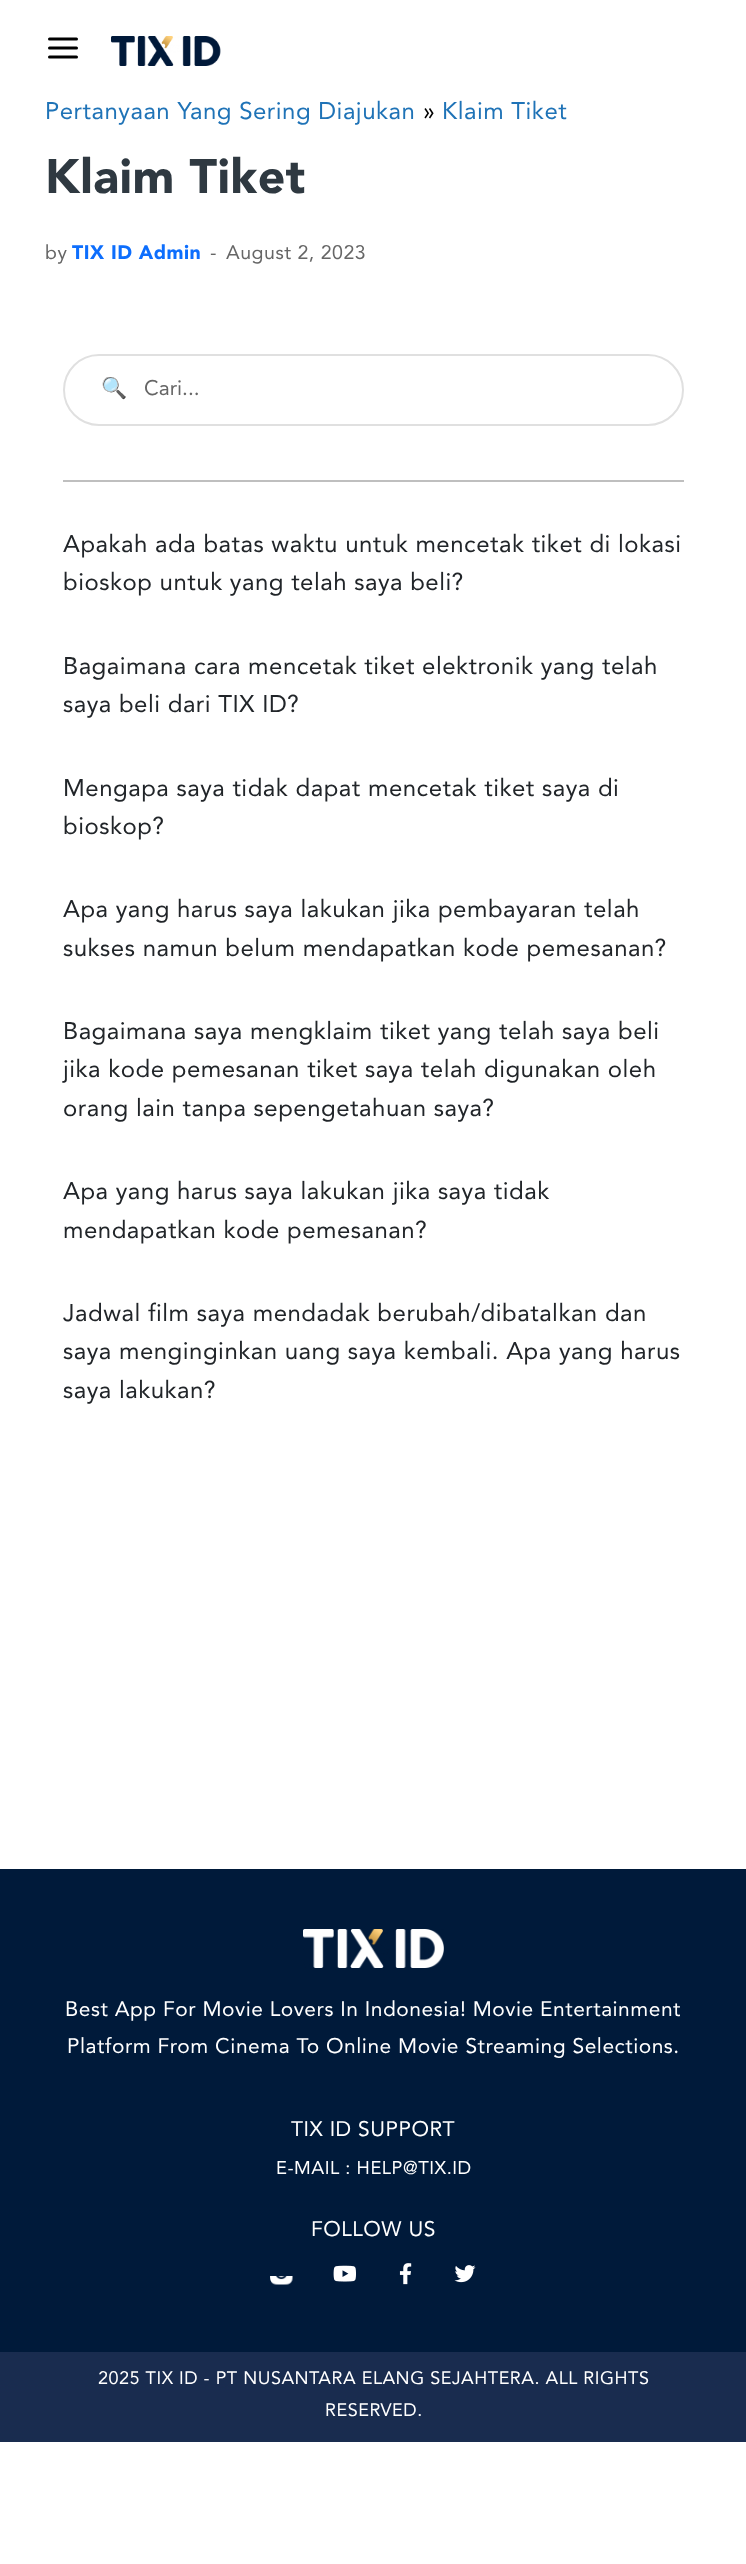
<svg xmlns="http://www.w3.org/2000/svg" width="746" height="2564">
	<defs>
		<clipPath id="clip1"><rect x="101" y="377" width="546" height="27" /></clipPath>
	</defs>
	<rect width="100%" height="100%" fill="#FFFFFF" />
	<path d="M49.5 48H76.5M49.5 39H76.5M49.5 57H76.5" fill="none" stroke="#000000" stroke-width="3" stroke-linecap="round" stroke-linejoin="round" />
	<image x="111" y="36" width="110" height="30" href="assets/img1.png" />
	<text x="45" y="119" font-family="Avenir" font-size="24" letter-spacing="0.52" fill="#1F73B7">Pertanyaan Yang Sering Diajukan</text>
	<text x="423" y="119" font-family="Avenir" font-size="24" letter-spacing="0.52" fill="#000000">»</text>
	<text x="442" y="119" font-family="Avenir" font-size="24" letter-spacing="0.52" fill="#1F73B7">Klaim Tiket</text>
	<text x="45" y="193" font-family="Avenir" font-size="48" font-weight="900" letter-spacing="0.52" fill="#2F3941">Klaim Tiket</text>
	<text x="45" y="259" font-family="Avenir" font-size="19.5" letter-spacing="0.52" fill="#666666">by</text>
	<text x="72" y="259" font-family="Avenir" font-size="19.5" font-weight="900" letter-spacing="0.52" fill="#0D6EFD">TIX ID Admin</text>
	<g font-family="Avenir" font-size="19.5" letter-spacing="0.52" fill="#666666">
		<text x="210" y="259">-</text>
		<text x="226" y="259">August 2, 2023</text>
	</g>
	<rect x="64" y="355" width="619" height="70" rx="35" fill="none" stroke="#E0E0E0" stroke-width="2" />
	<g clip-path="url(#clip1)">
		<text x="101" y="395" font-family="Noto Color Emoji" font-size="21" fill="#666666">🔍</text>
	</g>
	<text x="144" y="395" font-family="Avenir" font-size="21" fill="#666666">Cari...</text>
	<rect x="63" y="480" width="621" height="2" fill="#BFBFBF" />
	<g font-family="Avenir" font-size="24" letter-spacing="0.52" fill="#212529">
		<text x="63" y="552">Apakah ada batas waktu untuk mencetak tiket di lokasi</text>
		<text x="63" y="590">bioskop untuk yang telah saya beli?</text>
		<text x="63" y="674">Bagaimana cara mencetak tiket elektronik yang telah</text>
		<text x="63" y="712">saya beli dari TIX ID?</text>
		<text x="63" y="796">Mengapa saya tidak dapat mencetak tiket saya di</text>
		<text x="63" y="834">bioskop?</text>
		<text x="63" y="917">Apa yang harus saya lakukan jika pembayaran telah</text>
		<text x="63" y="956">sukses namun belum mendapatkan kode pemesanan?</text>
		<text x="63" y="1039">Bagaimana saya mengklaim tiket yang telah saya beli</text>
		<text x="63" y="1077">jika kode pemesanan tiket saya telah digunakan oleh</text>
		<text x="63" y="1116">orang lain tanpa sepengetahuan saya?</text>
		<text x="63" y="1199">Apa yang harus saya lakukan jika saya tidak</text>
		<text x="63" y="1238">mendapatkan kode pemesanan?</text>
		<text x="63" y="1321">Jadwal film saya mendadak berubah/dibatalkan dan</text>
		<text x="63" y="1359">saya menginginkan uang saya kembali. Apa yang harus</text>
		<text x="63" y="1398">saya lakukan?</text>
	</g>
	<rect x="0" y="1869" width="746" height="483" fill="#001A3A" />
	<image x="303" y="1929" width="141" height="39" href="assets/img2.png" />
	<g font-family="Avenir" font-size="21" letter-spacing="0.52" fill="#FFFFFF">
		<text x="65" y="2016">Best App For Movie Lovers In Indonesia! Movie Entertainment</text>
		<text x="67" y="2053">Platform From Cinema To Online Movie Streaming Selections.</text>
		<text x="291" y="2136">TIX ID SUPPORT</text>
	</g>
	<text x="276" y="2174" font-family="Avenir" font-size="18.4" letter-spacing="0.52" fill="#FFFFFF">E-MAIL : HELP@TIX.ID</text>
	<text x="311" y="2236" font-family="Avenir" font-size="21" letter-spacing="0.52" fill="#FFFFFF">FOLLOW US</text>
	<image x="270" y="2276" width="23" height="9" href="assets/img3.png" />
	<image x="333" y="2265" width="23" height="17" href="assets/img4.png" />
	<image x="399" y="2263" width="13" height="22" href="assets/img5.png" />
	<image x="454" y="2265" width="22" height="18" href="assets/img6.png" />
	<rect x="0" y="2352" width="746" height="90" fill="#192C4F" />
	<g font-family="Avenir" font-size="18" letter-spacing="0.52" fill="#FFFFFF">
		<text x="98" y="2384">2025 TIX ID - PT NUSANTARA ELANG SEJAHTERA. ALL RIGHTS</text>
		<text x="325" y="2416">RESERVED.</text>
	</g>
</svg>
